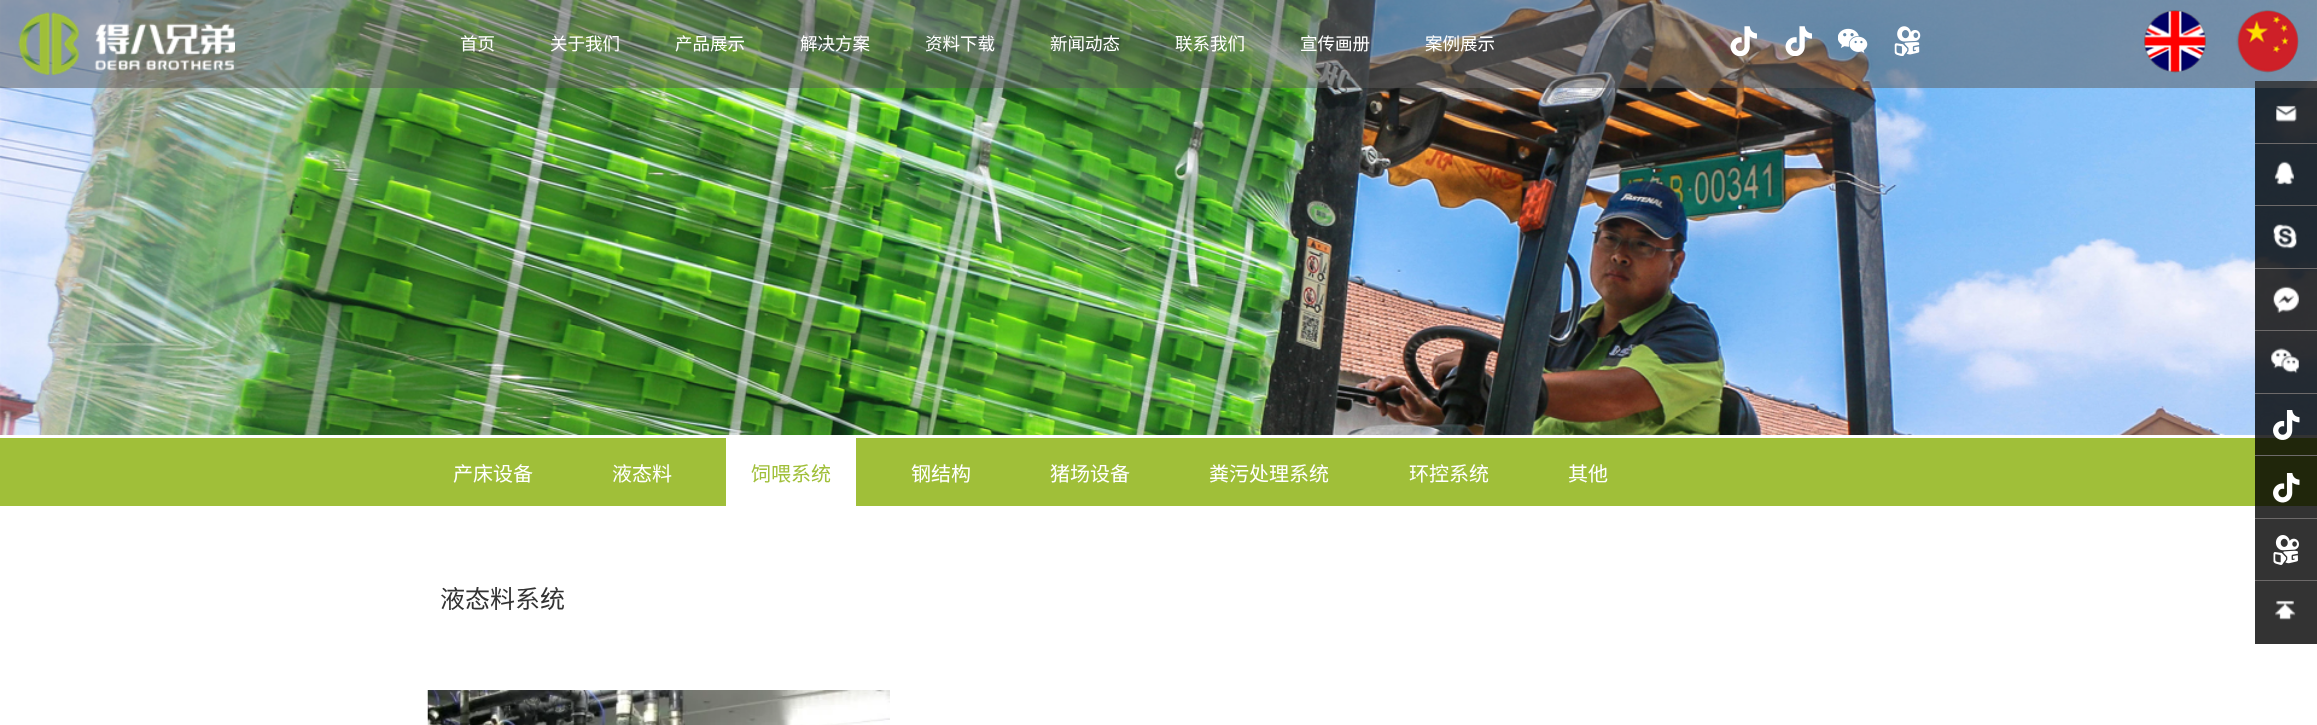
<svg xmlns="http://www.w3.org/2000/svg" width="2317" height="725">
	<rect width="100%" height="100%" fill="#FFFFFF" />
	<rect x="2255" y="506" width="62" height="12" fill="#333333" />
	<image x="0" y="0" width="2317" height="435" href="assets/img1.png" />
	<rect x="2255" y="81" width="62" height="62" fill="#000000" fill-opacity="0.8" />
	<rect x="0" y="0" width="2317" height="88" fill="#595757" fill-opacity="0.5" />
	<image x="18" y="12" width="217" height="63" href="assets/img2.png" />
	<g font-family="Noto Sans CJK SC" font-size="17.5" fill="#FFFFFF">
		<text x="460" y="50">首页</text>
		<text x="550" y="50">关于我们</text>
		<text x="675" y="50">产品展示</text>
		<text x="800" y="50">解决方案</text>
		<text x="925" y="50">资料下载</text>
		<text x="1050" y="50">新闻动态</text>
		<text x="1175" y="50">联系我们</text>
		<text x="1300" y="50">宣传画册</text>
		<text x="1425" y="50">案例展示</text>
	</g>
	<image x="1730" y="26" width="27" height="30" href="assets/img3.png" />
	<image x="1785" y="26" width="27" height="30" href="assets/img4.png" />
	<image x="1838" y="28" width="30" height="25" href="assets/img5.png" />
	<image x="1894" y="26" width="27" height="30" href="assets/img6.png" />
	<image x="2144" y="10" width="62" height="63" href="assets/img7.png" />
	<image x="2236" y="10" width="63" height="63" href="assets/img8.png" />
	<rect x="0" y="438" width="2317" height="68" fill="#A0BF39" />
	<rect x="2255" y="456" width="62" height="50" fill="#20260B" />
	<g font-family="Noto Sans CJK SC" font-size="20" fill="#FFFFFF">
		<text x="453" y="481">产床设备</text>
		<text x="612" y="481">液态料</text>
	</g>
	<rect x="726" y="438" width="130" height="68" fill="#FFFFFF" />
	<text x="751" y="481" font-family="Noto Sans CJK SC" font-size="20" fill="#A0BF39">饲喂系统</text>
	<g font-family="Noto Sans CJK SC" font-size="20" fill="#FFFFFF">
		<text x="911" y="481">钢结构</text>
		<text x="1050" y="481">猪场设备</text>
		<text x="1209" y="481">粪污处理系统</text>
		<text x="1409" y="481">环控系统</text>
		<text x="1568" y="481">其他</text>
	</g>
	<image x="2276" y="105" width="21" height="17" href="assets/img9.png" />
	<rect x="2255" y="143" width="62" height="1" fill="#6D6A6A" />
	<rect x="2255" y="144" width="62" height="61" fill="#000000" fill-opacity="0.8" />
	<image x="2274" y="161" width="20" height="24" href="assets/img10.png" />
	<rect x="2255" y="205" width="62" height="1" fill="#6D6A6A" />
	<rect x="2255" y="206" width="62" height="62" fill="#000000" fill-opacity="0.8" />
	<image x="2273" y="224" width="24" height="25" href="assets/img11.png" />
	<rect x="2255" y="268" width="62" height="1" fill="#6D6A6A" />
	<rect x="2255" y="269" width="62" height="61" fill="#000000" fill-opacity="0.8" />
	<image x="2273" y="286" width="26" height="27" href="assets/img12.png" />
	<rect x="2255" y="330" width="62" height="1" fill="#6D6A6A" />
	<rect x="2255" y="331" width="62" height="62" fill="#000000" fill-opacity="0.8" />
	<image x="2271" y="348" width="28" height="26" href="assets/img13.png" />
	<rect x="2255" y="393" width="62" height="1" fill="#6D6A6A" />
	<rect x="2255" y="394" width="62" height="61" fill="#000000" fill-opacity="0.8" />
	<image x="2273" y="410" width="27" height="30" href="assets/img14.png" />
	<rect x="2255" y="455" width="62" height="1" fill="#6D6A6A" />
	<image x="2273" y="473" width="27" height="30" href="assets/img15.png" />
	<rect x="2255" y="518" width="62" height="1" fill="#6D6A6A" />
	<rect x="2255" y="519" width="62" height="61" fill="#333333" />
	<image x="2273" y="535" width="26" height="30" href="assets/img16.png" />
	<rect x="2255" y="580" width="62" height="1" fill="#6D6A6A" />
	<rect x="2255" y="581" width="62" height="63" fill="#333333" />
	<image x="2275" y="600" width="21" height="20" href="assets/img17.png" />
	<text x="440" y="608" font-family="Noto Sans CJK SC" font-size="25" fill="#333333">液态料系统</text>
	<image x="427" y="690" width="463" height="35" href="assets/img18.png" />
</svg>
